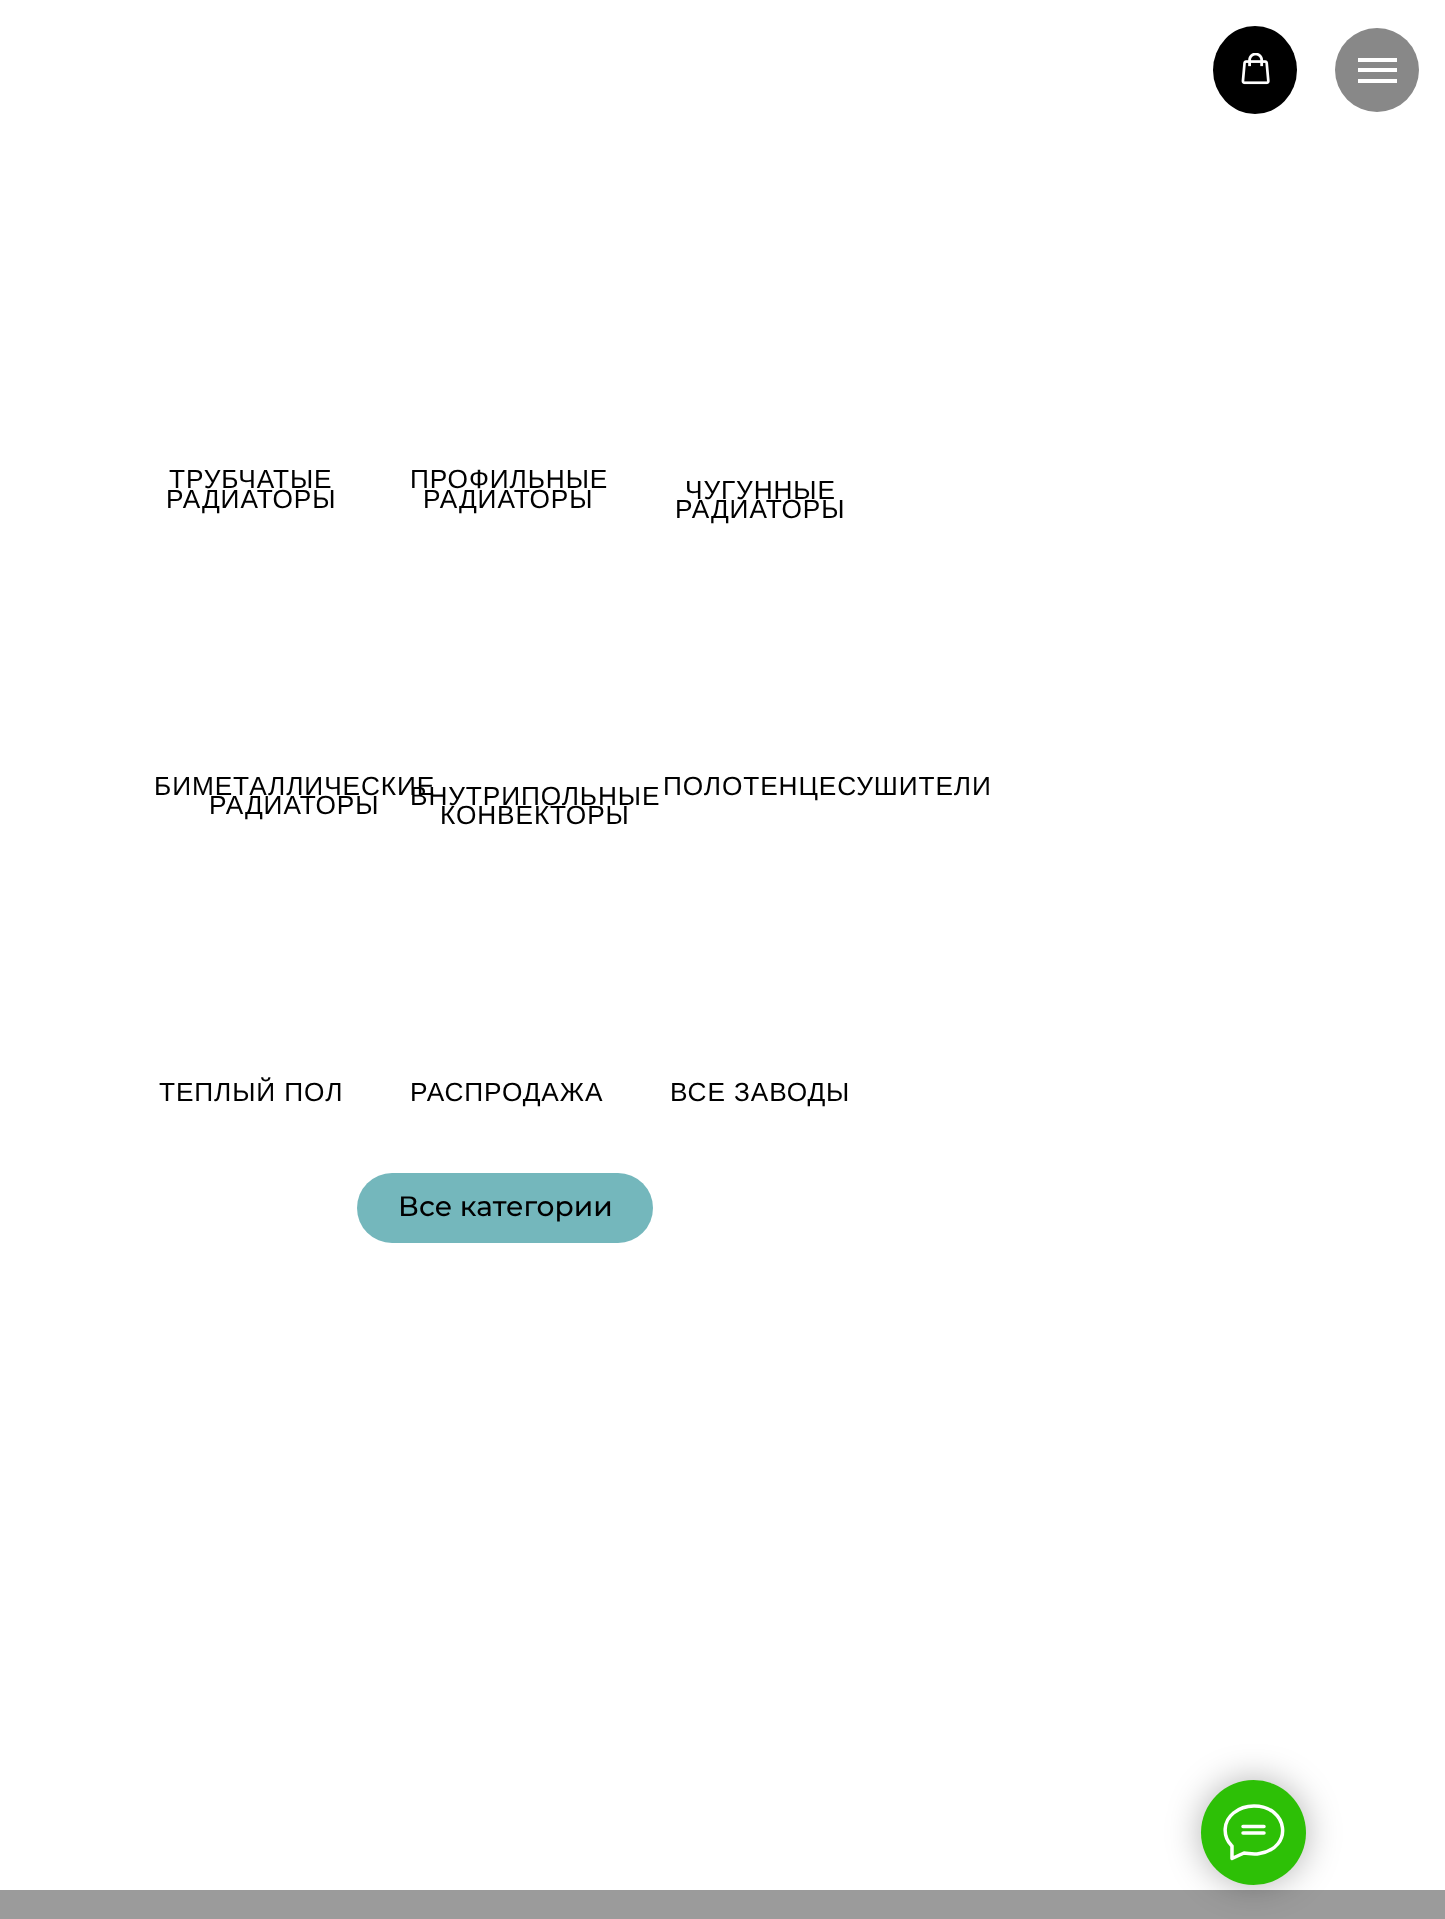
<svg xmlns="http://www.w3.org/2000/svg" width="1445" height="1919">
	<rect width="100%" height="100%" fill="#FFFFFF" />
	<ellipse cx="1255" cy="70" rx="42" ry="44" fill="#000000" />
	<image x="1241" y="53" width="29" height="32" href="assets/img1.png" />
	<circle cx="1377" cy="70" r="42" fill="#888888" />
	<rect x="1358" y="58" width="39" height="4" fill="#FFFFFF" />
	<rect x="1358" y="68" width="39" height="4" fill="#FFFFFF" />
	<rect x="1358" y="79" width="39" height="4" fill="#FFFFFF" />
	<g font-family="Liberation Sans" font-size="26.25" letter-spacing="0.9" fill="#000000">
		<text x="169" y="488">ТРУБЧАТЫЕ</text>
		<text x="166" y="508">РАДИАТОРЫ</text>
		<text x="410" y="488">ПРОФИЛЬНЫЕ</text>
		<text x="423" y="508">РАДИАТОРЫ</text>
		<text x="685" y="499">ЧУГУННЫЕ</text>
		<text x="675" y="518">РАДИАТОРЫ</text>
		<text x="410" y="805">ВНУТРИПОЛЬНЫЕ</text>
		<text x="154" y="795">БИМЕТАЛЛИЧЕСКИЕ</text>
		<text x="209" y="814">РАДИАТОРЫ</text>
		<text x="440" y="824">КОНВЕКТОРЫ</text>
		<text x="663" y="795">ПОЛОТЕНЦЕСУШИТЕЛИ</text>
		<text x="159" y="1101">ТЕПЛЫЙ ПОЛ</text>
		<text x="410" y="1101">РАСПРОДАЖА</text>
		<text x="670" y="1101">ВСЕ ЗАВОДЫ</text>
	</g>
	<rect x="357" y="1173" width="296" height="70" rx="35" fill="#74B7BC" />
	<text x="398" y="1216" font-family="Montserrat" font-size="28" font-weight="500" fill="#000000">Все категории</text>
	<rect x="0" y="1890" width="1445" height="29" fill="#9B9B9B" />
	<rect x="1201" y="1780" width="105" height="105" rx="52.5" fill="#000000" fill-opacity="0.3" filter="blur(17.5px)" />
	<circle cx="1253.5" cy="1832.5" r="52.5" fill="#2DC006" />
	<path d="M1243 1826.5H1264M1243 1833H1264M1231.5 1845.5C1222.5 1836 1223 1821.5 1233.5 1813C1239 1808.5 1246.5 1806 1254 1806C1288 1806 1294 1848 1259.5 1853.5C1253.5 1855 1250 1853.5 1244 1853L1232 1858.5V1846Z" fill="none" stroke="#FFFFFF" stroke-width="3.5" stroke-linecap="round" stroke-linejoin="round" />
</svg>
